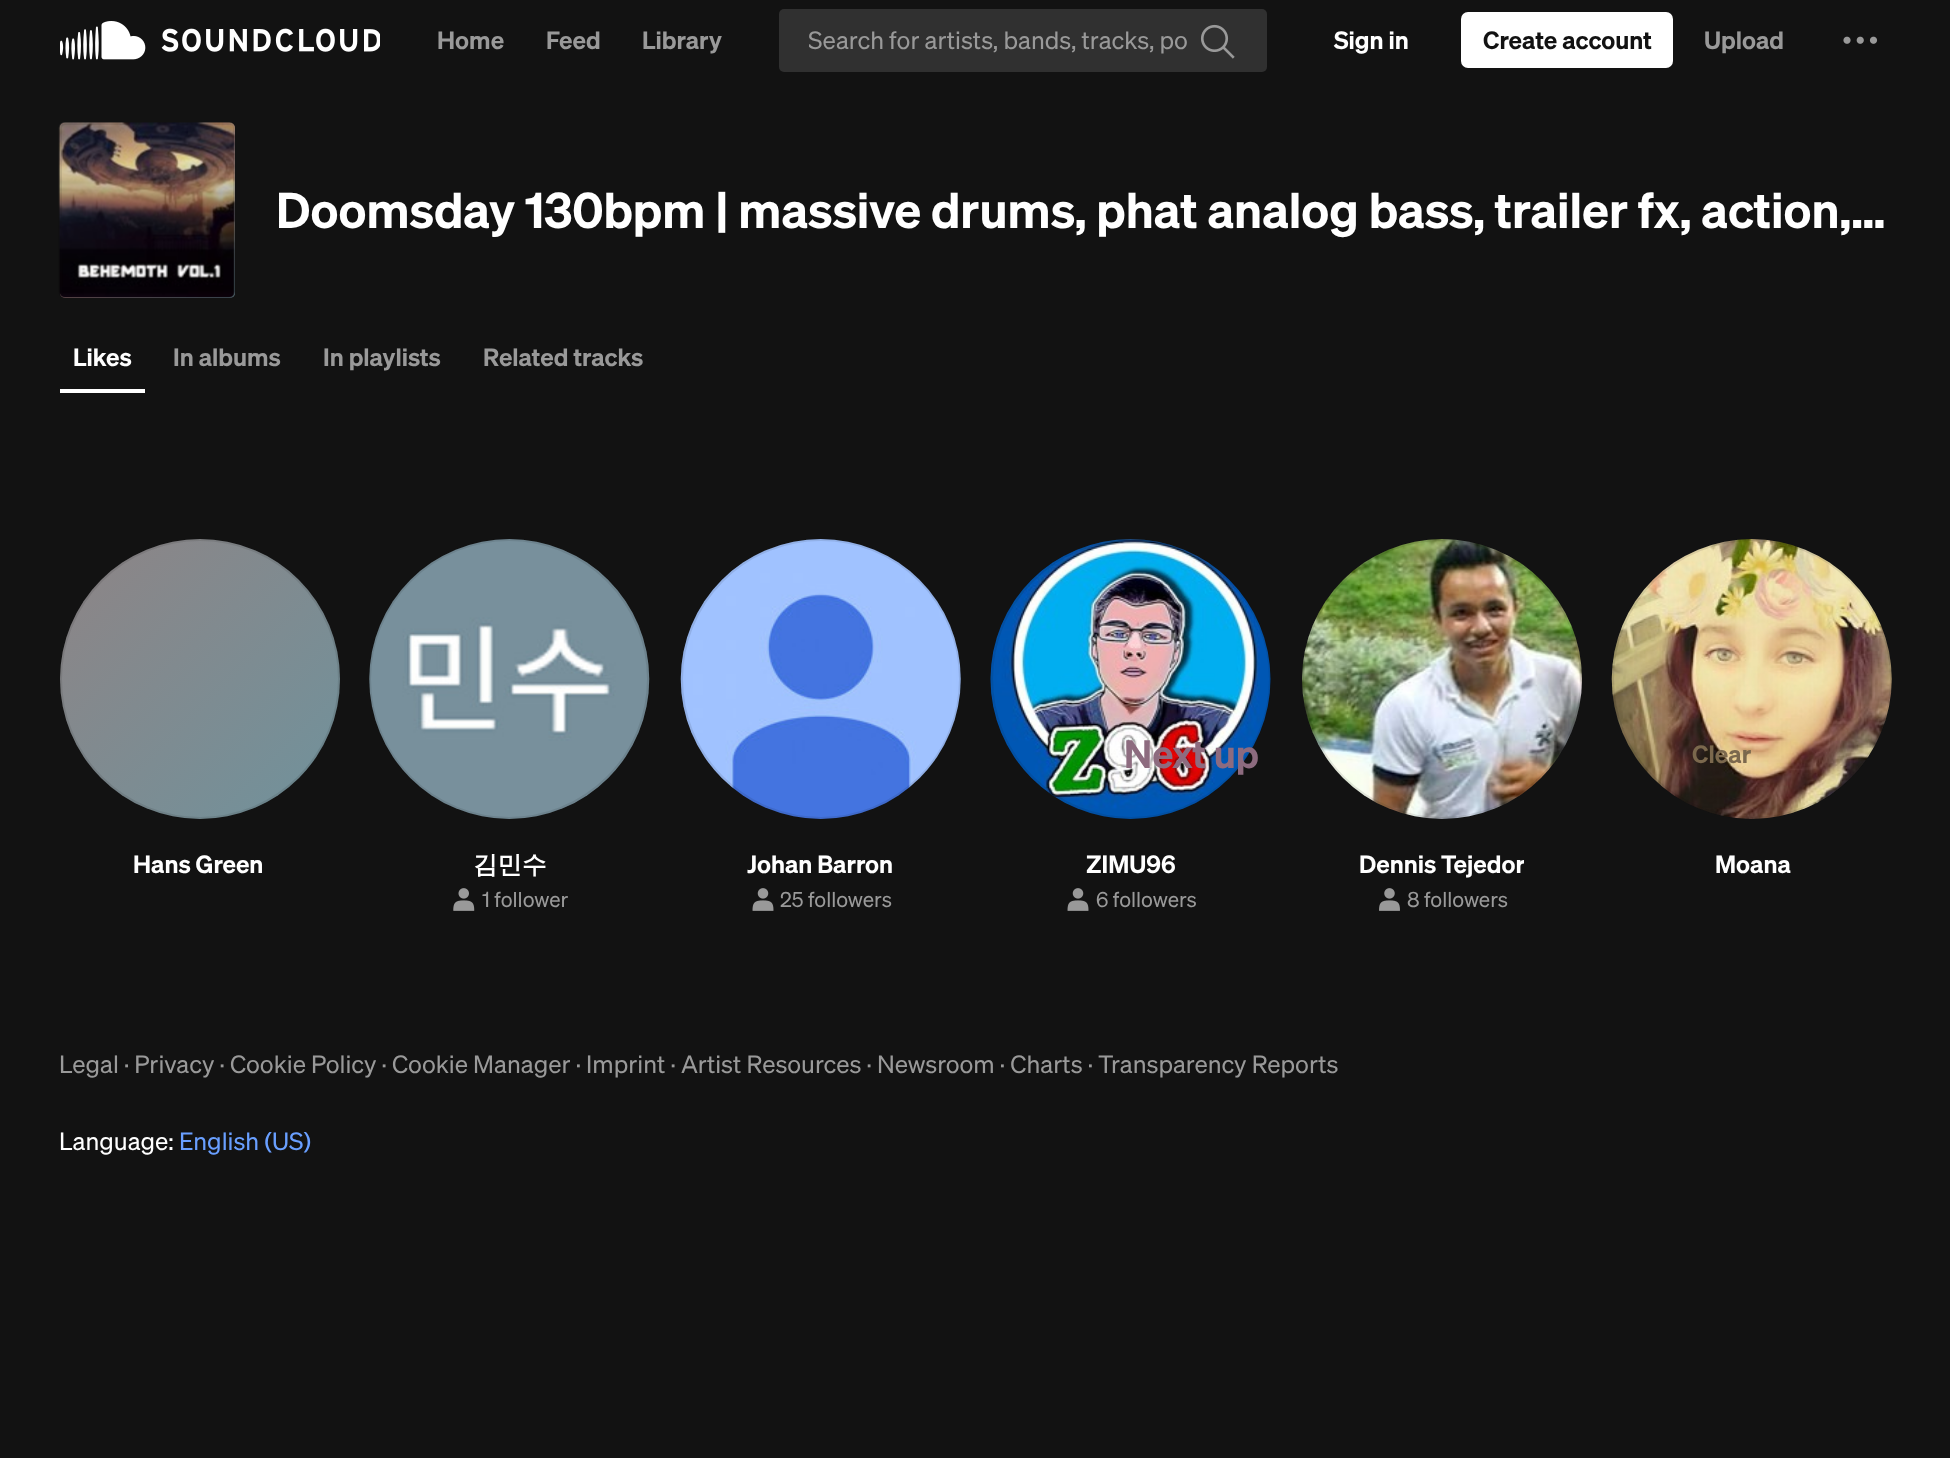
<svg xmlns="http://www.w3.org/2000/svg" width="1950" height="1458">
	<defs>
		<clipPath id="clip1"><rect x="809" y="21" width="379" height="39" /></clipPath>
		<linearGradient id="g1" gradientUnits="userSpaceOnUse" x1="59" y1="123" x2="235" y2="298"><stop offset="0" stop-color="#E6846E" /><stop offset="1" stop-color="#70929C" /></linearGradient>
		<linearGradient id="g2" gradientUnits="userSpaceOnUse" x1="59" y1="539" x2="340" y2="819"><stop offset="0" stop-color="#8E8485" /><stop offset="1" stop-color="#70929C" /></linearGradient>
		<clipPath id="clip2"><rect x="1358" y="847" width="166" height="35" /></clipPath>
	</defs>
	<rect width="100%" height="100%" fill="#121212" />
	<image x="60" y="21" width="320" height="39" href="assets/img1.png" />
	<g font-family="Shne" font-size="24.5" font-weight="600" fill="#999999">
		<text x="437" y="49">Home</text>
		<text x="546" y="49">Feed</text>
		<text x="642" y="49">Library</text>
	</g>
	<rect x="779" y="9" width="488" height="63" rx="5" fill="#303030" />
	<g clip-path="url(#clip1)">
		<text x="808" y="49" font-family="Shne" font-size="24.5" fill="#999999">Search for artists, bands, tracks, po</text>
	</g>
	<image x="1200" y="24" width="35" height="35" href="assets/img2.png" />
	<text x="1334" y="49" font-family="Shne" font-size="24.5" font-weight="600" fill="#FFFFFF">Sign in</text>
	<rect x="1461" y="12" width="212" height="56" rx="7" fill="#FFFFFF" />
	<text x="1483" y="49" font-family="Shne" font-size="24.5" font-weight="600" fill="#121212">Create account</text>
	<text x="1704" y="49" font-family="Shne" font-size="24.5" font-weight="600" fill="#999999">Upload</text>
	<image x="1843" y="36" width="35" height="8" href="assets/img3.png" />
	<rect x="60" y="123" width="175" height="175" rx="5" fill="url(#g1)" />
	<image x="58" y="122" width="177" height="176" href="assets/img4.png" />
	<rect x="61" y="124" width="173" height="173" rx="4" fill="none" stroke="#121212" stroke-opacity="0.1" stroke-width="2" />
	<text x="276" y="228" font-family="Shne" font-size="49" font-weight="600" fill="#FFFFFF">Doomsday 130bpm | massive drums, phat analog bass, trailer fx, action,…</text>
	<rect x="60" y="389" width="85" height="4" fill="#FFFFFF" />
	<text x="73" y="366" font-family="Shne" font-size="24.5" font-weight="600" fill="#FFFFFF">Likes</text>
	<g font-family="Shne" font-size="24.5" font-weight="600" fill="#999999">
		<text x="173" y="366">In albums</text>
		<text x="323" y="366">In playlists</text>
		<text x="483" y="366">Related tracks</text>
	</g>
	<circle cx="200" cy="679" r="140" fill="url(#g2)" />
	<circle cx="200" cy="679" r="139" fill="none" stroke="#121212" stroke-opacity="0.1" stroke-width="2" />
	<text x="133" y="873" font-family="Shne" font-size="24.5" font-weight="600" fill="#FFFFFF">Hans Green</text>
	<image x="369" y="539" width="281" height="280" href="assets/img5.png" />
	<circle cx="509" cy="679" r="139" fill="none" stroke="#121212" stroke-opacity="0.1" stroke-width="2" />
	<text x="473" y="873" font-family="WenQuanYi Zen Hei" font-size="24.5" font-weight="700" fill="#FFFFFF">김민수</text>
	<image x="453" y="888" width="22" height="23" href="assets/img6.png" />
	<text x="482" y="907" font-family="Shne" font-size="21" fill="#999999">1 follower</text>
	<image x="680" y="539" width="281" height="280" href="assets/img7.png" />
	<circle cx="821" cy="679" r="139" fill="none" stroke="#121212" stroke-opacity="0.1" stroke-width="2" />
	<text x="747" y="873" font-family="Shne" font-size="24.5" font-weight="600" fill="#FFFFFF">Johan Barron</text>
	<image x="752" y="888" width="22" height="23" href="assets/img8.png" />
	<text x="780" y="907" font-family="Shne" font-size="21" fill="#999999">25 followers</text>
	<image x="990" y="539" width="281" height="280" href="assets/img9.png" />
	<circle cx="1131" cy="679" r="139" fill="none" stroke="#121212" stroke-opacity="0.1" stroke-width="2" />
	<text x="1086" y="873" font-family="Shne" font-size="24.5" font-weight="600" fill="#FFFFFF">ZIMU96</text>
	<image x="1067" y="888" width="22" height="23" href="assets/img8.png" />
	<text x="1096" y="907" font-family="Shne" font-size="21" fill="#999999">6 followers</text>
	<image x="1302" y="539" width="280" height="280" href="assets/img10.png" />
	<circle cx="1442" cy="679" r="139" fill="none" stroke="#121212" stroke-opacity="0.1" stroke-width="2" />
	<g clip-path="url(#clip2)">
		<text x="1359" y="873" font-family="Shne" font-size="24.5" font-weight="600" fill="#FFFFFF">Dennis Tejedor</text>
	</g>
	<image x="1379" y="888" width="21" height="23" href="assets/img11.png" />
	<text x="1407" y="907" font-family="Shne" font-size="21" fill="#999999">8 followers</text>
	<image x="1611" y="539" width="281" height="280" href="assets/img12.png" />
	<circle cx="1752" cy="679" r="139" fill="none" stroke="#121212" stroke-opacity="0.1" stroke-width="2" />
	<text x="1715" y="873" font-family="Shne" font-size="24.5" font-weight="600" fill="#FFFFFF">Moana</text>
	<text x="59" y="1073" font-family="Shne" font-size="24.5" fill="#999999">Legal · Privacy · Cookie Policy · Cookie Manager · Imprint · Artist Resources · Newsroom · Charts · Transparency Reports</text>
	<text x="59" y="1150" font-family="Shne" font-size="24.5" fill="#FFFFFF">Language:</text>
	<text x="179" y="1150" font-family="Shne" font-size="24.5" fill="#699FFF">English (US)</text>
	<text x="1124" y="768" font-family="Shne" font-size="38.5" font-weight="600" fill="#8D6B7F">Next up</text>
	<text x="1692" y="763" font-family="Shne" font-size="24.5" font-weight="600" fill="#7B684D">Clear</text>
</svg>
